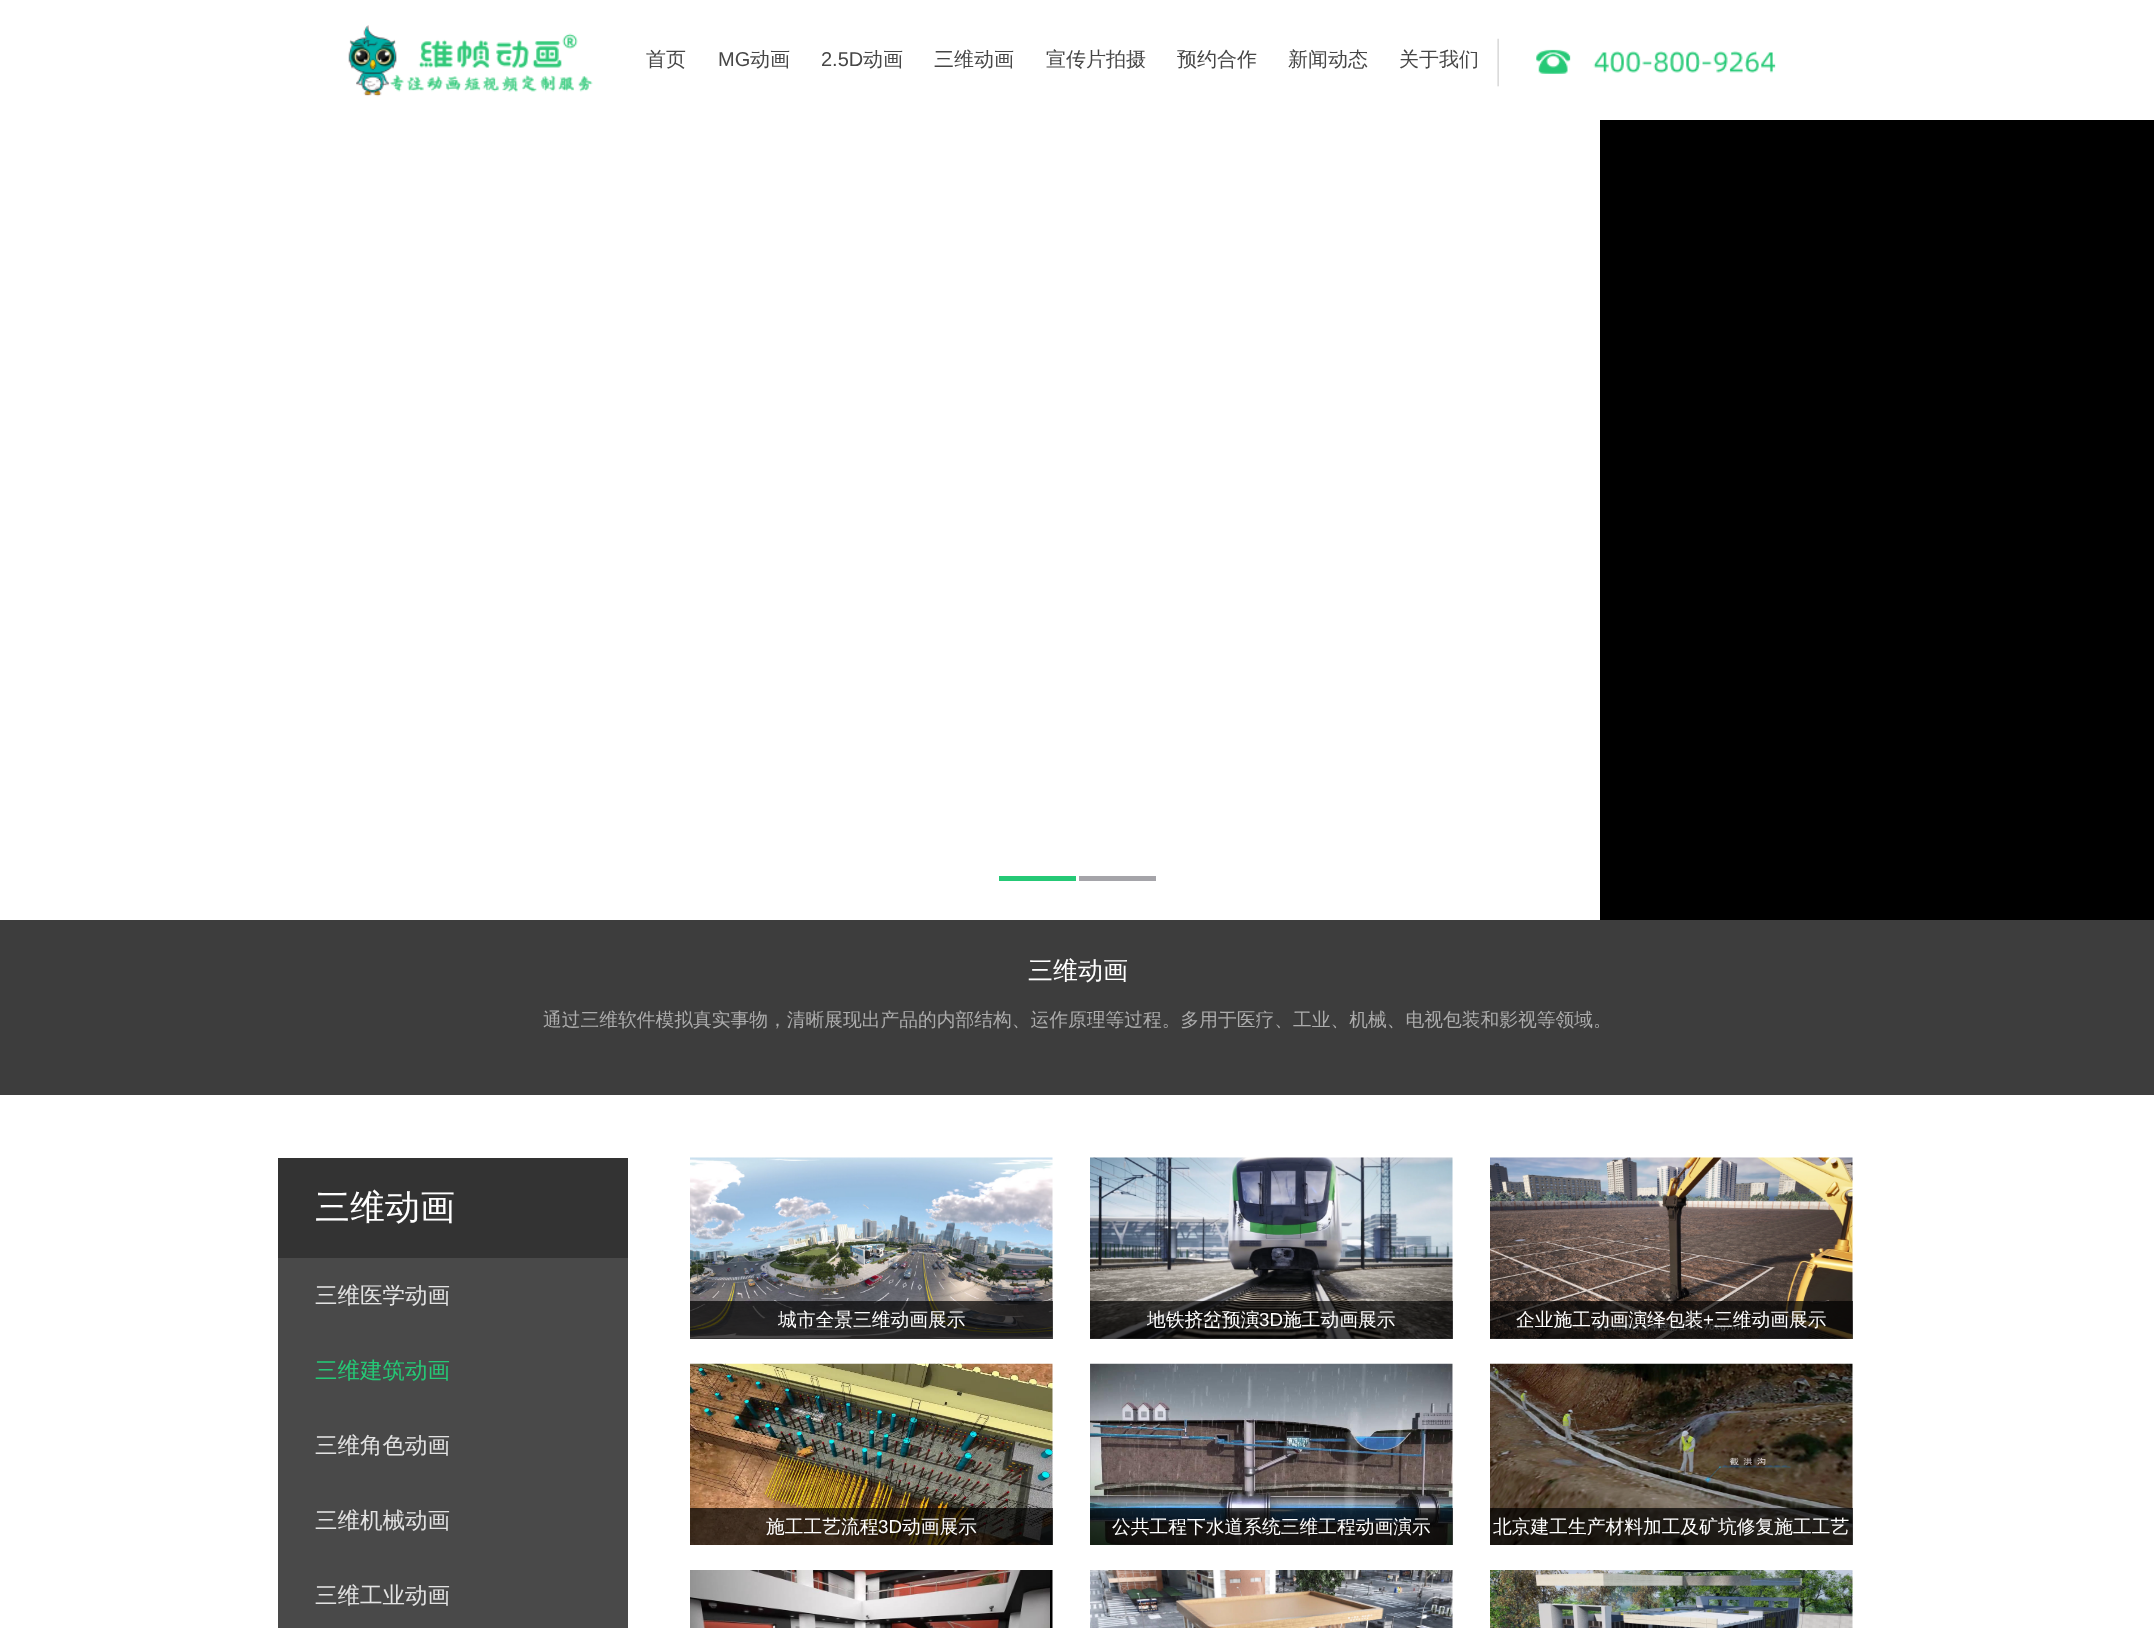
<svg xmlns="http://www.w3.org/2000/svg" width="2154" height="1628">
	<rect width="100%" height="100%" fill="#FFFFFF" />
	<image x="348" y="25" width="245" height="72" href="assets/img1.png" />
	<text x="646" y="66" font-family="WenQuanYi Zen Hei" font-size="20" font-weight="500" fill="#464646">首页</text>
	<text x="718" y="66" font-family="Liberation Sans" font-size="20" fill="#464646">MG</text>
	<text x="750" y="66" font-family="WenQuanYi Zen Hei" font-size="20" font-weight="500" fill="#464646">动画</text>
	<text x="821" y="66" font-family="Liberation Sans" font-size="20" fill="#464646">2.5D</text>
	<g font-family="WenQuanYi Zen Hei" font-size="20" font-weight="500" fill="#464646">
		<text x="863" y="66">动画</text>
		<text x="934" y="66">三维动画</text>
		<text x="1046" y="66">宣传片拍摄</text>
		<text x="1177" y="66">预约合作</text>
		<text x="1288" y="66">新闻动态</text>
		<text x="1399" y="66">关于我们</text>
	</g>
	<image x="1497" y="38" width="279" height="49" href="assets/img2.png" />
	<rect x="1600" y="120" width="554" height="800" fill="#000000" />
	<rect x="999" y="876" width="77" height="5" fill="#25C976" />
	<rect x="1079" y="876" width="77" height="5" fill="#A5A4A9" />
	<rect x="0" y="920" width="2154" height="175" fill="#3D3D3D" />
	<text x="1028" y="979" font-family="WenQuanYi Zen Hei" font-size="25" font-weight="500" fill="#FFFFFF">三维动画</text>
	<text x="543" y="1026" font-family="WenQuanYi Zen Hei" font-size="18.75" font-weight="500" fill="#ACACAC">通过三维软件模拟真实事物，清晰展现出产品的内部结构、运作原理等过程。多用于医疗、工业、机械、电视包装和影视等领域。</text>
	<rect x="278" y="1258" width="350" height="370" fill="#494949" />
	<rect x="278" y="1158" width="350" height="100" fill="#333333" />
	<text x="315" y="1219" font-family="WenQuanYi Zen Hei" font-size="35" font-weight="500" fill="#FFFFFF">三维动画</text>
	<text x="315" y="1303" font-family="WenQuanYi Zen Hei" font-size="22.5" font-weight="500" fill="#E3E3E3">三维医学动画</text>
	<text x="315" y="1378" font-family="WenQuanYi Zen Hei" font-size="22.5" font-weight="500" fill="#25C976">三维建筑动画</text>
	<g font-family="WenQuanYi Zen Hei" font-size="22.5" font-weight="500" fill="#E3E3E3">
		<text x="315" y="1453">三维角色动画</text>
		<text x="315" y="1528">三维机械动画</text>
		<text x="315" y="1603">三维工业动画</text>
	</g>
	<image x="690" y="1157" width="363" height="182" href="assets/img3.png" />
	<rect x="690" y="1301" width="363" height="38" fill="#000000" fill-opacity="0.7" />
	<text x="778" y="1326" font-family="WenQuanYi Zen Hei" font-size="18.75" font-weight="500" fill="#FFFFFF">城市全景三维动画展示</text>
	<image x="1090" y="1157" width="363" height="182" href="assets/img4.png" />
	<rect x="1090" y="1301" width="363" height="38" fill="#000000" fill-opacity="0.7" />
	<text x="1147" y="1326" font-family="WenQuanYi Zen Hei" font-size="18.75" font-weight="500" fill="#FFFFFF">地铁挤岔预演</text>
	<text x="1259" y="1326" font-family="Liberation Sans" font-size="18.75" fill="#FFFFFF">3D</text>
	<text x="1283" y="1326" font-family="WenQuanYi Zen Hei" font-size="18.75" font-weight="500" fill="#FFFFFF">施工动画展示</text>
	<image x="1490" y="1157" width="363" height="182" href="assets/img5.png" />
	<rect x="1490" y="1301" width="363" height="38" fill="#000000" fill-opacity="0.7" />
	<text x="1516" y="1326" font-family="WenQuanYi Zen Hei" font-size="18.75" font-weight="500" fill="#FFFFFF">企业施工动画演绎包装</text>
	<text x="1703" y="1326" font-family="Liberation Sans" font-size="18.75" fill="#FFFFFF">+</text>
	<text x="1714" y="1326" font-family="WenQuanYi Zen Hei" font-size="18.75" font-weight="500" fill="#FFFFFF">三维动画展示</text>
	<image x="690" y="1363" width="363" height="182" href="assets/img6.png" />
	<rect x="690" y="1508" width="363" height="37" fill="#000000" fill-opacity="0.7" />
	<text x="766" y="1533" font-family="WenQuanYi Zen Hei" font-size="18.75" font-weight="500" fill="#FFFFFF">施工工艺流程</text>
	<text x="878" y="1533" font-family="Liberation Sans" font-size="18.75" fill="#FFFFFF">3D</text>
	<text x="902" y="1533" font-family="WenQuanYi Zen Hei" font-size="18.75" font-weight="500" fill="#FFFFFF">动画展示</text>
	<image x="1090" y="1363" width="363" height="182" href="assets/img7.png" />
	<rect x="1090" y="1508" width="363" height="37" fill="#000000" fill-opacity="0.7" />
	<text x="1112" y="1533" font-family="WenQuanYi Zen Hei" font-size="18.75" font-weight="500" fill="#FFFFFF">公共工程下水道系统三维工程动画演示</text>
	<image x="1490" y="1363" width="363" height="182" href="assets/img8.png" />
	<rect x="1490" y="1508" width="363" height="37" fill="#000000" fill-opacity="0.7" />
	<text x="1493" y="1533" font-family="WenQuanYi Zen Hei" font-size="18.75" font-weight="500" fill="#FFFFFF">北京建工生产材料加工及矿坑修复施工工艺</text>
	<image x="690" y="1570" width="363" height="58" href="assets/img9.png" />
	<image x="1090" y="1570" width="363" height="58" href="assets/img10.png" />
	<image x="1490" y="1570" width="363" height="58" href="assets/img11.png" />
</svg>
